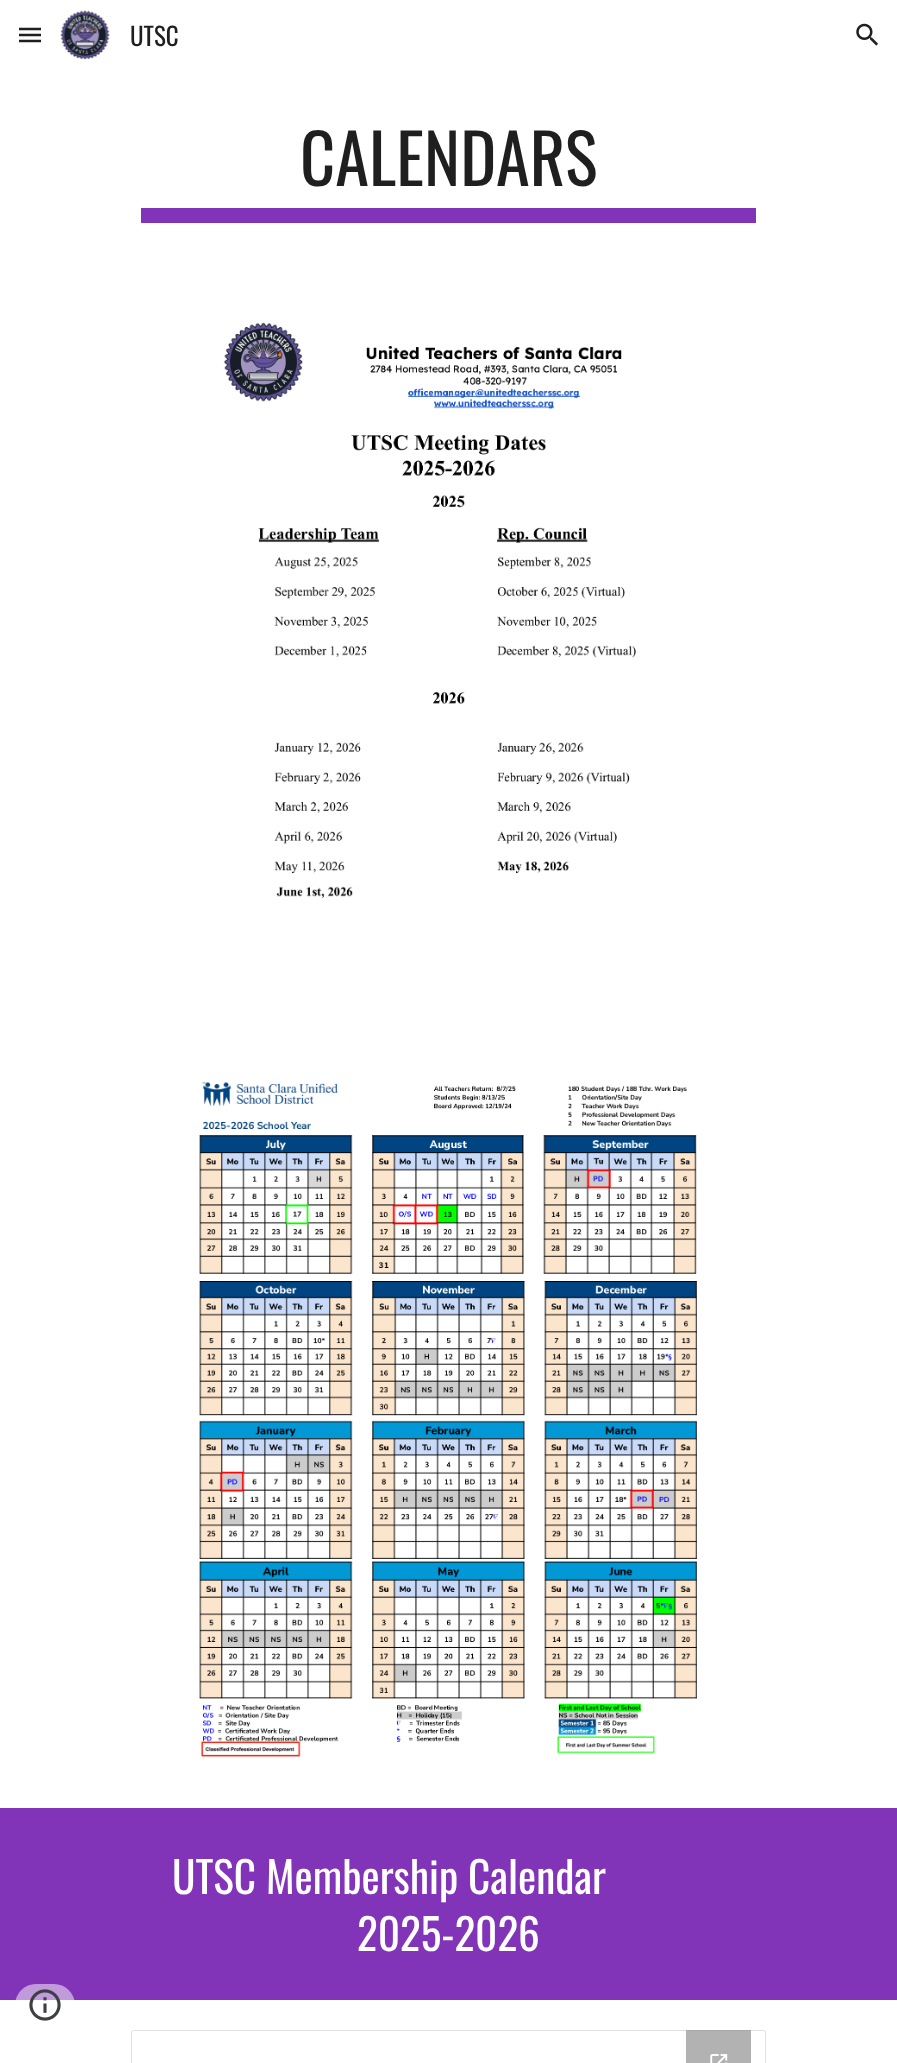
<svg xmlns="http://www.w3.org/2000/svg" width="897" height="2063">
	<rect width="100%" height="100%" fill="#FFFFFF" />
	<path d="M19 29H41M19 35H41M19 41H41" fill="none" stroke="#1F1F1F" stroke-width="2.5" />
	<image x="60" y="10" width="50" height="50" href="assets/img1.png" />
	<text x="130" y="46" font-family="Oswald" font-size="25" fill="#1F1F1F">UTSC</text>
	<image x="856" y="23" width="22" height="23" href="assets/img2.png" />
	<text x="300" y="186" font-family="Oswald" font-size="68.5" fill="#1F1F1F">CALENDARS</text>
	<rect x="141" y="208" width="615" height="15" fill="#8234B9" />
	<image x="223" y="322" width="413" height="576" href="assets/img3.png" />
	<image x="199" y="1081" width="498" height="676" href="assets/img4.png" />
	<rect x="0" y="1808" width="897" height="192" fill="#8234B9" />
	<g font-family="Oswald" font-size="43.25" fill="#FFFFFF">
		<text x="172" y="1894">UTSC Membership Calendar</text>
		<text x="357" y="1951">2025-2026</text>
	</g>
	<rect x="131.5" y="2030.5" width="634" height="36" rx="2" fill="none" stroke="#E0E0E0" />
	<rect x="686" y="2030" width="65" height="33" fill="#919191" fill-opacity="0.7" />
	<image x="710" y="2054" width="18" height="9" href="assets/img5.png" />
	<rect x="15" y="1984" width="60" height="60" rx="21" fill="#FFFFFF" fill-opacity="0.5" />
	<image x="29" y="1989" width="32" height="32" href="assets/img6.png" />
</svg>
